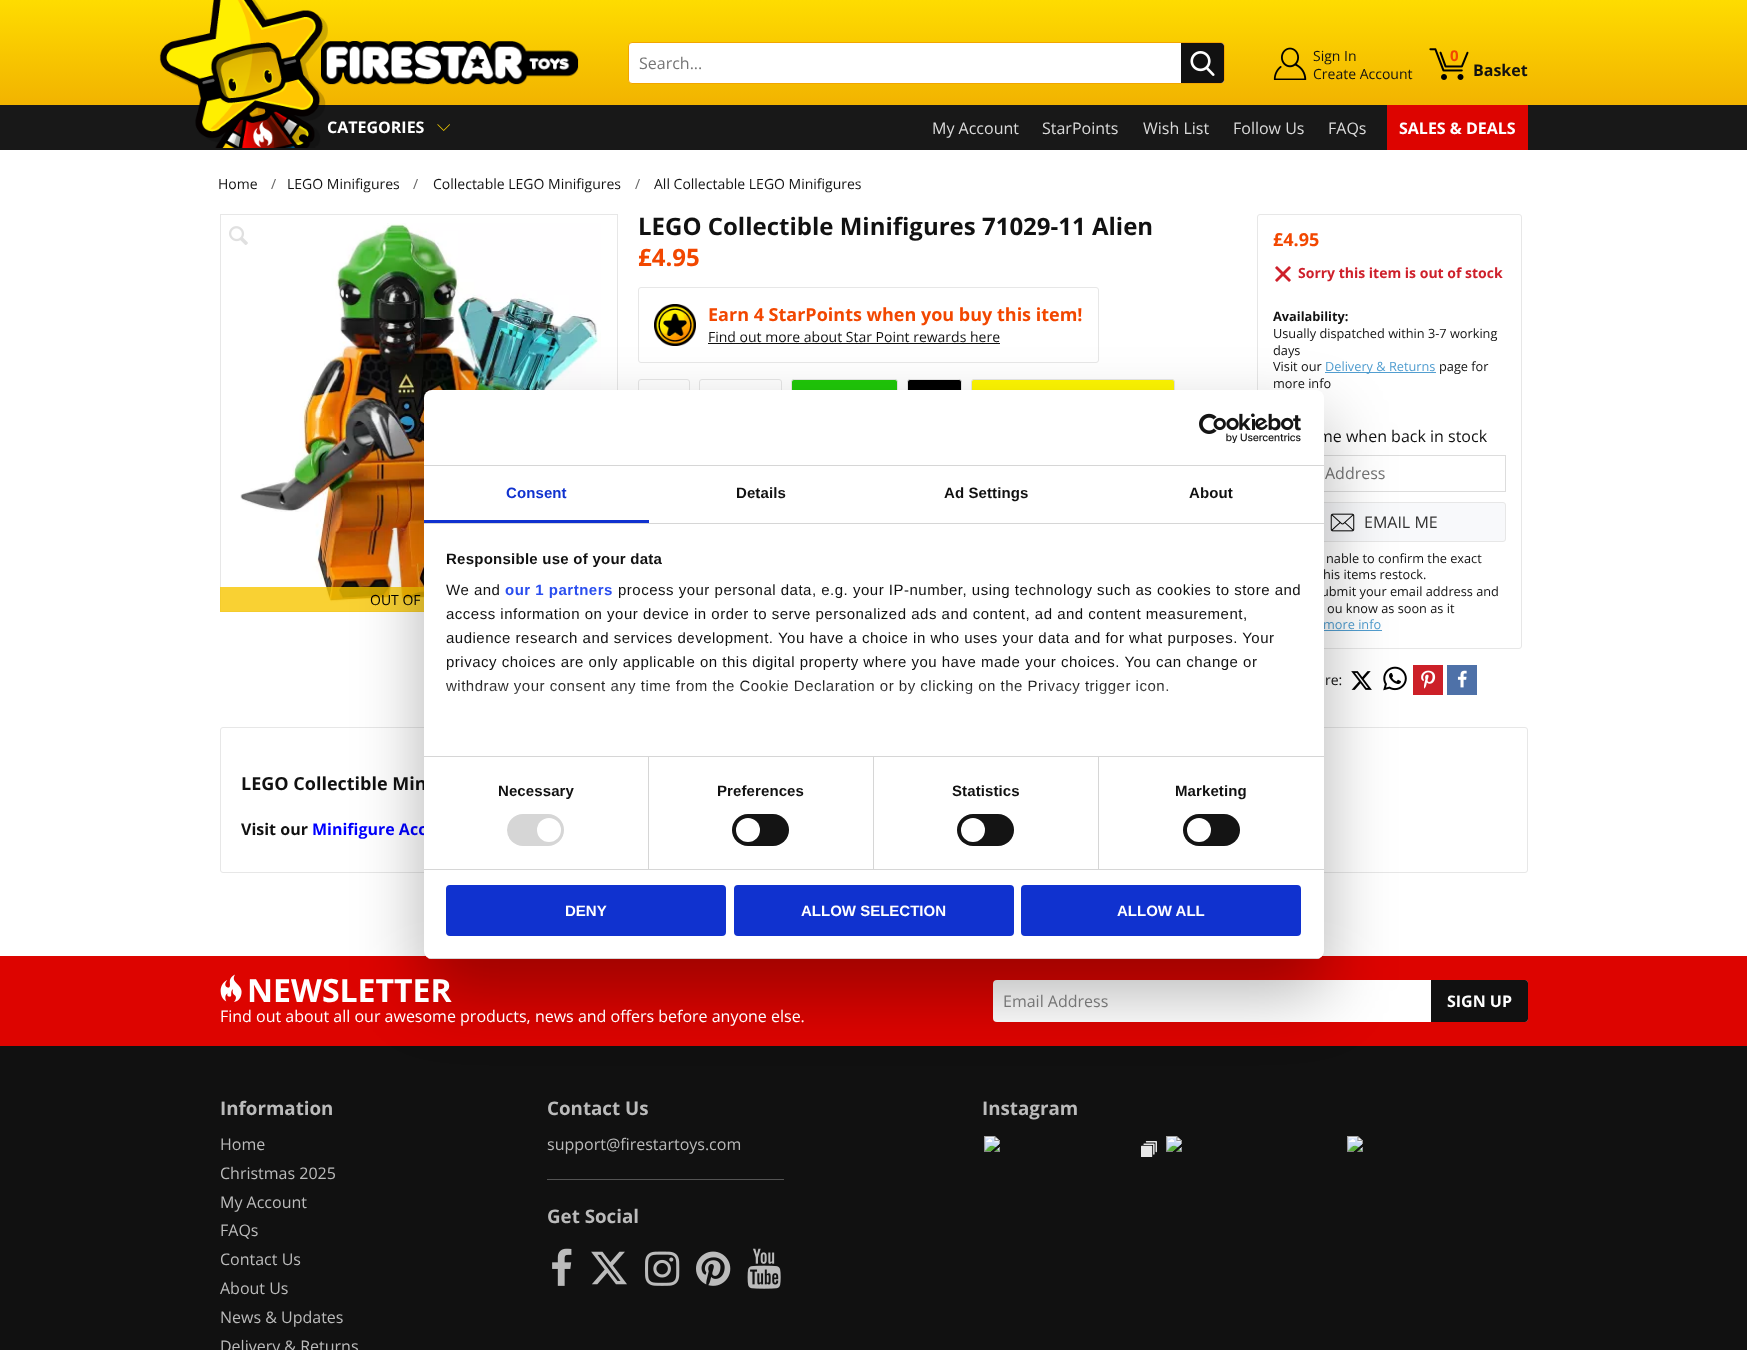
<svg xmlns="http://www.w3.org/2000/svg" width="1747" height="1350">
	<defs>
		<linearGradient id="g1" gradientUnits="userSpaceOnUse" x1="874" y1="0" x2="874" y2="105"><stop offset="0" stop-color="#FEDC00" /><stop offset="1" stop-color="#F2B300" /></linearGradient>
		<linearGradient id="g2" gradientUnits="userSpaceOnUse" x1="864" y1="756" x2="864" y2="681"><stop offset="0" stop-color="#FFFFFF" /><stop offset="0.5" stop-color="#FFFFFF" stop-opacity="0.8" /><stop offset="1" stop-color="#FFFFFF" stop-opacity="0" /></linearGradient>
		<clipPath id="clip1"><rect x="424" y="390" width="900" height="569" rx="8" /></clipPath>
	</defs>
	<rect width="100%" height="100%" fill="#FFFFFF" />
	<rect x="0" y="0" width="1747" height="105" fill="url(#g1)" />
	<image x="321" y="41" width="258" height="44" href="assets/img2.png" />
	<rect x="0" y="105" width="1747" height="45" fill="#181818" />
	<text x="327" y="133" font-family="Open Sans" font-size="16" font-weight="700" fill="#FFFFFF">CATEGORIES</text>
	<image x="159" y="0" width="169" height="148" href="assets/img1.png" />
	<rect x="628.5" y="42.5" width="596" height="41" rx="3.5" fill="#FFFFFF" stroke="#F2A500" />
	<text x="639" y="69" font-family="Open Sans" font-size="16" fill="#757575">Search...</text>
	<path d="M1181 43H1221C1222.5 43 1224 44.5 1224 46V80C1224 81.5 1222.5 83 1221 83H1181Z" fill="#111111" />
	<image x="1190" y="51" width="25" height="25" href="assets/img3.png" />
	<image x="1273" y="47" width="34" height="33" href="assets/img4.png" />
	<g font-family="Open Sans" font-size="14" fill="#111111">
		<text x="1313" y="61">Sign In</text>
		<text x="1313" y="79">Create Account</text>
	</g>
	<image x="1429" y="48" width="40" height="32" href="assets/img5.png" />
	<text x="1450" y="61" font-family="Open Sans" font-size="15" font-weight="700" fill="#F24700">0</text>
	<text x="1473" y="76" font-family="Open Sans" font-size="16" font-weight="700" fill="#111111">Basket</text>
	<image x="437" y="124" width="13" height="7" href="assets/img6.png" />
	<g font-family="Open Sans" font-size="16" fill="#DADADA">
		<text x="932" y="134">My Account</text>
		<text x="1042" y="134">StarPoints</text>
		<text x="1143" y="134">Wish List</text>
		<text x="1233" y="134">Follow Us</text>
		<text x="1328" y="134">FAQs</text>
	</g>
	<rect x="1387" y="105" width="141" height="45" fill="#DD0400" />
	<text x="1399" y="134" font-family="Open Sans" font-size="16" font-weight="700" fill="#FFFFFF">SALES &amp; DEALS</text>
	<text x="218" y="189" font-family="Open Sans" font-size="14" fill="#111111">Home</text>
	<text x="271" y="189" font-family="Open Sans" font-size="14" fill="#666666">/</text>
	<text x="287" y="189" font-family="Open Sans" font-size="14" fill="#111111">LEGO Minifigures</text>
	<text x="413" y="189" font-family="Open Sans" font-size="14" fill="#666666">/</text>
	<text x="433" y="189" font-family="Open Sans" font-size="14" fill="#111111">Collectable LEGO Minifigures</text>
	<text x="635" y="189" font-family="Open Sans" font-size="14" fill="#666666">/</text>
	<text x="654" y="189" font-family="Open Sans" font-size="14" fill="#111111">All Collectable LEGO Minifigures</text>
	<rect x="220.5" y="214.5" width="397" height="397" fill="none" stroke="#E7E7E7" />
	<image x="240" y="223" width="361" height="380" href="assets/img8.png" />
	<image x="229" y="226" width="19" height="19" href="assets/img7.png" />
	<rect x="220" y="587" width="204" height="25" fill="#F8C600" fill-opacity="0.8" />
	<text x="370" y="605" font-family="Open Sans" font-size="14" fill="#000000">OUT OF</text>
	<text x="638" y="235" font-family="Open Sans" font-size="24" font-weight="700" fill="#111111">LEGO Collectible Minifigures 71029-11 Alien</text>
	<text x="638" y="266" font-family="Open Sans" font-size="24" font-weight="700" fill="#F24700">£4.95</text>
	<rect x="638.5" y="287.5" width="460" height="75" rx="2.5" fill="none" stroke="#E7E7E7" />
	<image x="654" y="304" width="42" height="42" href="assets/img9.png" />
	<text x="708" y="321" font-family="Open Sans" font-size="18" font-weight="700" fill="#F24700">Earn 4 StarPoints when you buy this item!</text>
	<text x="708" y="342" font-family="Open Sans" font-size="14" fill="#111111">Find out more about Star Point rewards here</text>
	<rect x="708" y="343" width="292" height="1" fill="#111111" />
	<rect x="638.5" y="379.5" width="51" height="29" rx="2.5" fill="none" stroke="#E7E7E7" />
	<rect x="699.5" y="379.5" width="82" height="29" rx="2.5" fill="none" stroke="#E7E7E7" />
	<rect x="791.5" y="379.5" width="106" height="29" rx="2.5" fill="#20C809" stroke="#E7E7E7" />
	<rect x="907.5" y="379.5" width="54" height="29" rx="2.5" fill="#000000" stroke="#E7E7E7" />
	<rect x="971.5" y="379.5" width="203" height="29" rx="2.5" fill="#FFF700" stroke="#E7E7E7" />
	<rect x="1257.5" y="214.5" width="264" height="434" rx="2.5" fill="none" stroke="#E7E7E7" />
	<text x="1273" y="246" font-family="Open Sans" font-size="18" font-weight="700" fill="#F24700">£4.95</text>
	<image x="1275" y="266" width="16" height="16" href="assets/img10.png" />
	<text x="1298" y="278" font-family="Open Sans" font-size="14" font-weight="700" fill="#CE202B">Sorry this item is out of stock</text>
	<text x="1273" y="321" font-family="Open Sans" font-size="12.75" font-weight="700" fill="#111111">Availability:</text>
	<g font-family="Open Sans" font-size="12.75" fill="#111111">
		<text x="1273" y="338">Usually dispatched within 3-7 working</text>
		<text x="1273" y="355">days</text>
		<text x="1273" y="371">Visit our</text>
	</g>
	<rect x="1325" y="372" width="111" height="1" fill="#529ED0" />
	<text x="1325" y="371" font-family="Open Sans" font-size="12.75" fill="#529ED0">Delivery &amp; Returns</text>
	<g font-family="Open Sans" font-size="12.75" fill="#111111">
		<text x="1439" y="371">page for</text>
		<text x="1273" y="388">more info</text>
	</g>
	<text x="1318" y="442" font-family="Open Sans" font-size="16" fill="#111111">me when back in stock</text>
	<rect x="1273.5" y="455.5" width="232" height="36" fill="none" stroke="#DDDDDD" />
	<text x="1325" y="479" font-family="Open Sans" font-size="16" fill="#757575">Address</text>
	<rect x="1273.5" y="502.5" width="232" height="39" rx="2.5" fill="#F8F9FB" stroke="#E7E7E7" />
	<image x="1330" y="513" width="25" height="19" href="assets/img11.png" />
	<text x="1364" y="528" font-family="Open Sans" font-size="16" fill="#333333">EMAIL ME</text>
	<g font-family="Open Sans" font-size="12.75" fill="#111111">
		<text x="1326" y="563">nable to confirm the exact</text>
		<text x="1323" y="579">his items restock.</text>
		<text x="1321" y="596">ubmit your email address and</text>
		<text x="1327" y="613">ou know as soon as it</text>
	</g>
	<text x="1323" y="629" font-family="Open Sans" font-size="12.75" fill="#529ED0">more info</text>
	<rect x="1323" y="630" width="59" height="1" fill="#529ED0" />
	<text x="1325" y="685" font-family="Open Sans" font-size="14" fill="#111111">re:</text>
	<image x="1351" y="671" width="21" height="19" href="assets/img12.png" />
	<image x="1383" y="666" width="24" height="25" href="assets/img13.png" />
	<rect x="1413" y="665" width="30" height="30" fill="#CC2028" />
	<image x="1421" y="670" width="15" height="19" href="assets/img14.png" />
	<rect x="1447" y="665" width="30" height="30" fill="#4E71A8" />
	<image x="1457" y="670" width="10" height="18" href="assets/img15.png" />
	<rect x="220.5" y="727.5" width="1307" height="145" rx="2.5" fill="none" stroke="#E7E7E7" />
	<text x="241" y="790" font-family="Open Sans" font-size="18" font-weight="700" fill="#111111">LEGO Collectible Min</text>
	<text x="241" y="835" font-family="Open Sans" font-size="16" font-weight="700" fill="#111111">Visit our</text>
	<text x="312" y="835" font-family="Open Sans" font-size="16" font-weight="700" fill="#0000FF">Minifigure Acc</text>
	<rect x="0" y="956" width="1747" height="90" fill="#DD0400" />
	<rect x="993" y="980" width="535" height="42" rx="4" fill="#FFFFFF" />
	<rect x="0" y="1046" width="1747" height="304" fill="#111111" />
	<rect x="424" y="422" width="900" height="569" rx="8" fill="#000000" fill-opacity="0.3" filter="blur(34px)" />
	<rect x="424" y="390" width="900" height="569" rx="8" fill="#FFFFFF" />
	<rect x="424" y="465" width="900" height="1" fill="#D6D6D6" />
	<image x="1199" y="413" width="102" height="30" href="assets/img16.png" />
	<rect x="424" y="523" width="900" height="1" fill="#D6D6D6" />
	<rect x="424" y="520" width="225" height="3" fill="#1032CF" />
	<text x="506" y="498" font-family="Liberation Sans" font-size="15" font-weight="700" letter-spacing="0.1" fill="#1032CF">Consent</text>
	<g font-family="Liberation Sans" font-size="15" font-weight="700" letter-spacing="0.1" fill="#111111">
		<text x="736" y="498">Details</text>
		<text x="944" y="498">Ad Settings</text>
		<text x="1189" y="498">About</text>
	</g>
	<rect x="424" y="756" width="900" height="1" fill="#D6D6D6" />
	<text x="446" y="564" font-family="Liberation Sans" font-size="15" font-weight="700" letter-spacing="0.25" fill="#111111">Responsible use of your data</text>
	<text x="446" y="595" font-family="Liberation Sans" font-size="15" letter-spacing="0.5" fill="#111111">We and</text>
	<text x="505" y="595" font-family="Liberation Sans" font-size="15" font-weight="700" letter-spacing="0.5" fill="#2A4EEF">our 1 partners</text>
	<g font-family="Liberation Sans" font-size="15" letter-spacing="0.5" fill="#111111">
		<text x="618" y="595">process your personal data, e.g. your IP-number, using technology such as cookies to store and</text>
		<text x="446" y="619">access information on your device in order to serve personalized ads and content, ad and content measurement,</text>
		<text x="446" y="643">audience research and services development. You have a choice in who uses your data and for what purposes. Your</text>
		<text x="446" y="667">privacy choices are only applicable on this digital property where you have made your choices. You can change or</text>
		<text x="446" y="691">withdraw your consent any time from the Cookie Declaration or by clicking on the Privacy trigger icon.</text>
	</g>
	<rect x="446" y="682" width="722" height="13" fill="url(#g2)" />
	<rect x="424" y="869" width="900" height="1" fill="#D6D6D6" />
	<rect x="648" y="757" width="1" height="112" fill="#D6D6D6" />
	<text x="498" y="796" font-family="Liberation Sans" font-size="15" font-weight="700" letter-spacing="0.1" fill="#111111">Necessary</text>
	<rect x="507" y="814" width="57" height="32" rx="16" fill="#D6D6D6" />
	<circle cx="549" cy="830" r="12" fill="#FFFFFF" />
	<rect x="873" y="757" width="1" height="112" fill="#D6D6D6" />
	<text x="717" y="796" font-family="Liberation Sans" font-size="15" font-weight="700" letter-spacing="0.1" fill="#111111">Preferences</text>
	<rect x="732" y="814" width="57" height="32" rx="16" fill="#141414" />
	<circle cx="748" cy="830" r="12" fill="#FFFFFF" />
	<rect x="1098" y="757" width="1" height="112" fill="#D6D6D6" />
	<text x="952" y="796" font-family="Liberation Sans" font-size="15" font-weight="700" letter-spacing="0.1" fill="#111111">Statistics</text>
	<rect x="957" y="814" width="57" height="32" rx="16" fill="#141414" />
	<circle cx="973" cy="830" r="12" fill="#FFFFFF" />
	<text x="1175" y="796" font-family="Liberation Sans" font-size="15" font-weight="700" letter-spacing="0.1" fill="#111111">Marketing</text>
	<rect x="1183" y="814" width="57" height="32" rx="16" fill="#141414" />
	<circle cx="1199" cy="830" r="12" fill="#FFFFFF" />
	<g clip-path="url(#clip1)">
		<rect x="424" y="958" width="900" height="1" fill="#D6D6D6" />
	</g>
	<rect x="447" y="886" width="278" height="49" rx="3" fill="#1032CF" stroke="#1032CF" stroke-width="2" />
	<text x="565" y="916" font-family="Liberation Sans" font-size="15" font-weight="700" fill="#FFFFFF">DENY</text>
	<rect x="735" y="886" width="278" height="49" rx="3" fill="#1032CF" stroke="#1032CF" stroke-width="2" />
	<text x="801" y="916" font-family="Liberation Sans" font-size="15" font-weight="700" fill="#FFFFFF">ALLOW SELECTION</text>
	<rect x="1022" y="886" width="278" height="49" rx="3" fill="#1032CF" stroke="#1032CF" stroke-width="2" />
	<text x="1117" y="916" font-family="Liberation Sans" font-size="15" font-weight="700" fill="#FFFFFF">ALLOW ALL</text>
	<image x="220" y="974" width="22" height="28" href="assets/img17.png" />
	<text x="247" y="1002" font-family="Open Sans" font-size="32" font-weight="700" fill="#FFFFFF">NEWSLETTER</text>
	<text x="220" y="1022" font-family="Open Sans" font-size="16" fill="#FFFFFF">Find out about all our awesome products, news and offers before anyone else.</text>
	<text x="1003" y="1007" font-family="Open Sans" font-size="16" fill="#757575">Email Address</text>
	<path d="M1431 980H1525C1526.5 980 1528 981.5 1528 983V1019C1528 1020.5 1526.5 1022 1525 1022H1431Z" fill="#111111" />
	<text x="1447" y="1007" font-family="Open Sans" font-size="16" font-weight="700" fill="#FFFFFF">SIGN UP</text>
	<text x="220" y="1115" font-family="Open Sans" font-size="18.75" font-weight="700" fill="#BBBBBB">Information</text>
	<g font-family="Open Sans" font-size="16" fill="#BBBBBB">
		<text x="220" y="1150">Home</text>
		<text x="220" y="1179">Christmas 2025</text>
		<text x="220" y="1208">My Account</text>
		<text x="220" y="1236">FAQs</text>
		<text x="220" y="1265">Contact Us</text>
		<text x="220" y="1294">About Us</text>
		<text x="220" y="1323">News &amp; Updates</text>
		<text x="220" y="1352">Delivery &amp; Returns</text>
	</g>
	<text x="547" y="1115" font-family="Open Sans" font-size="18.75" font-weight="700" fill="#BBBBBB">Contact Us</text>
	<text x="547" y="1150" font-family="Open Sans" font-size="16" fill="#BBBBBB">support@firestartoys.com</text>
	<rect x="547" y="1179" width="237" height="1" fill="#545454" />
	<text x="547" y="1223" font-family="Open Sans" font-size="18.75" font-weight="700" fill="#BBBBBB">Get Social</text>
	<image x="552" y="1248" width="20" height="38" href="assets/img18.png" />
	<image x="591" y="1251" width="36" height="34" href="assets/img19.png" />
	<image x="645" y="1251" width="35" height="35" href="assets/img20.png" />
	<image x="696" y="1251" width="35" height="35" href="assets/img21.png" />
	<image x="747" y="1248" width="34" height="41" href="assets/img22.png" />
	<text x="982" y="1115" font-family="Open Sans" font-size="18.75" font-weight="700" fill="#BBBBBB">Instagram</text>
	<image x="984" y="1136" width="379" height="21" href="assets/img23.png" />
</svg>
